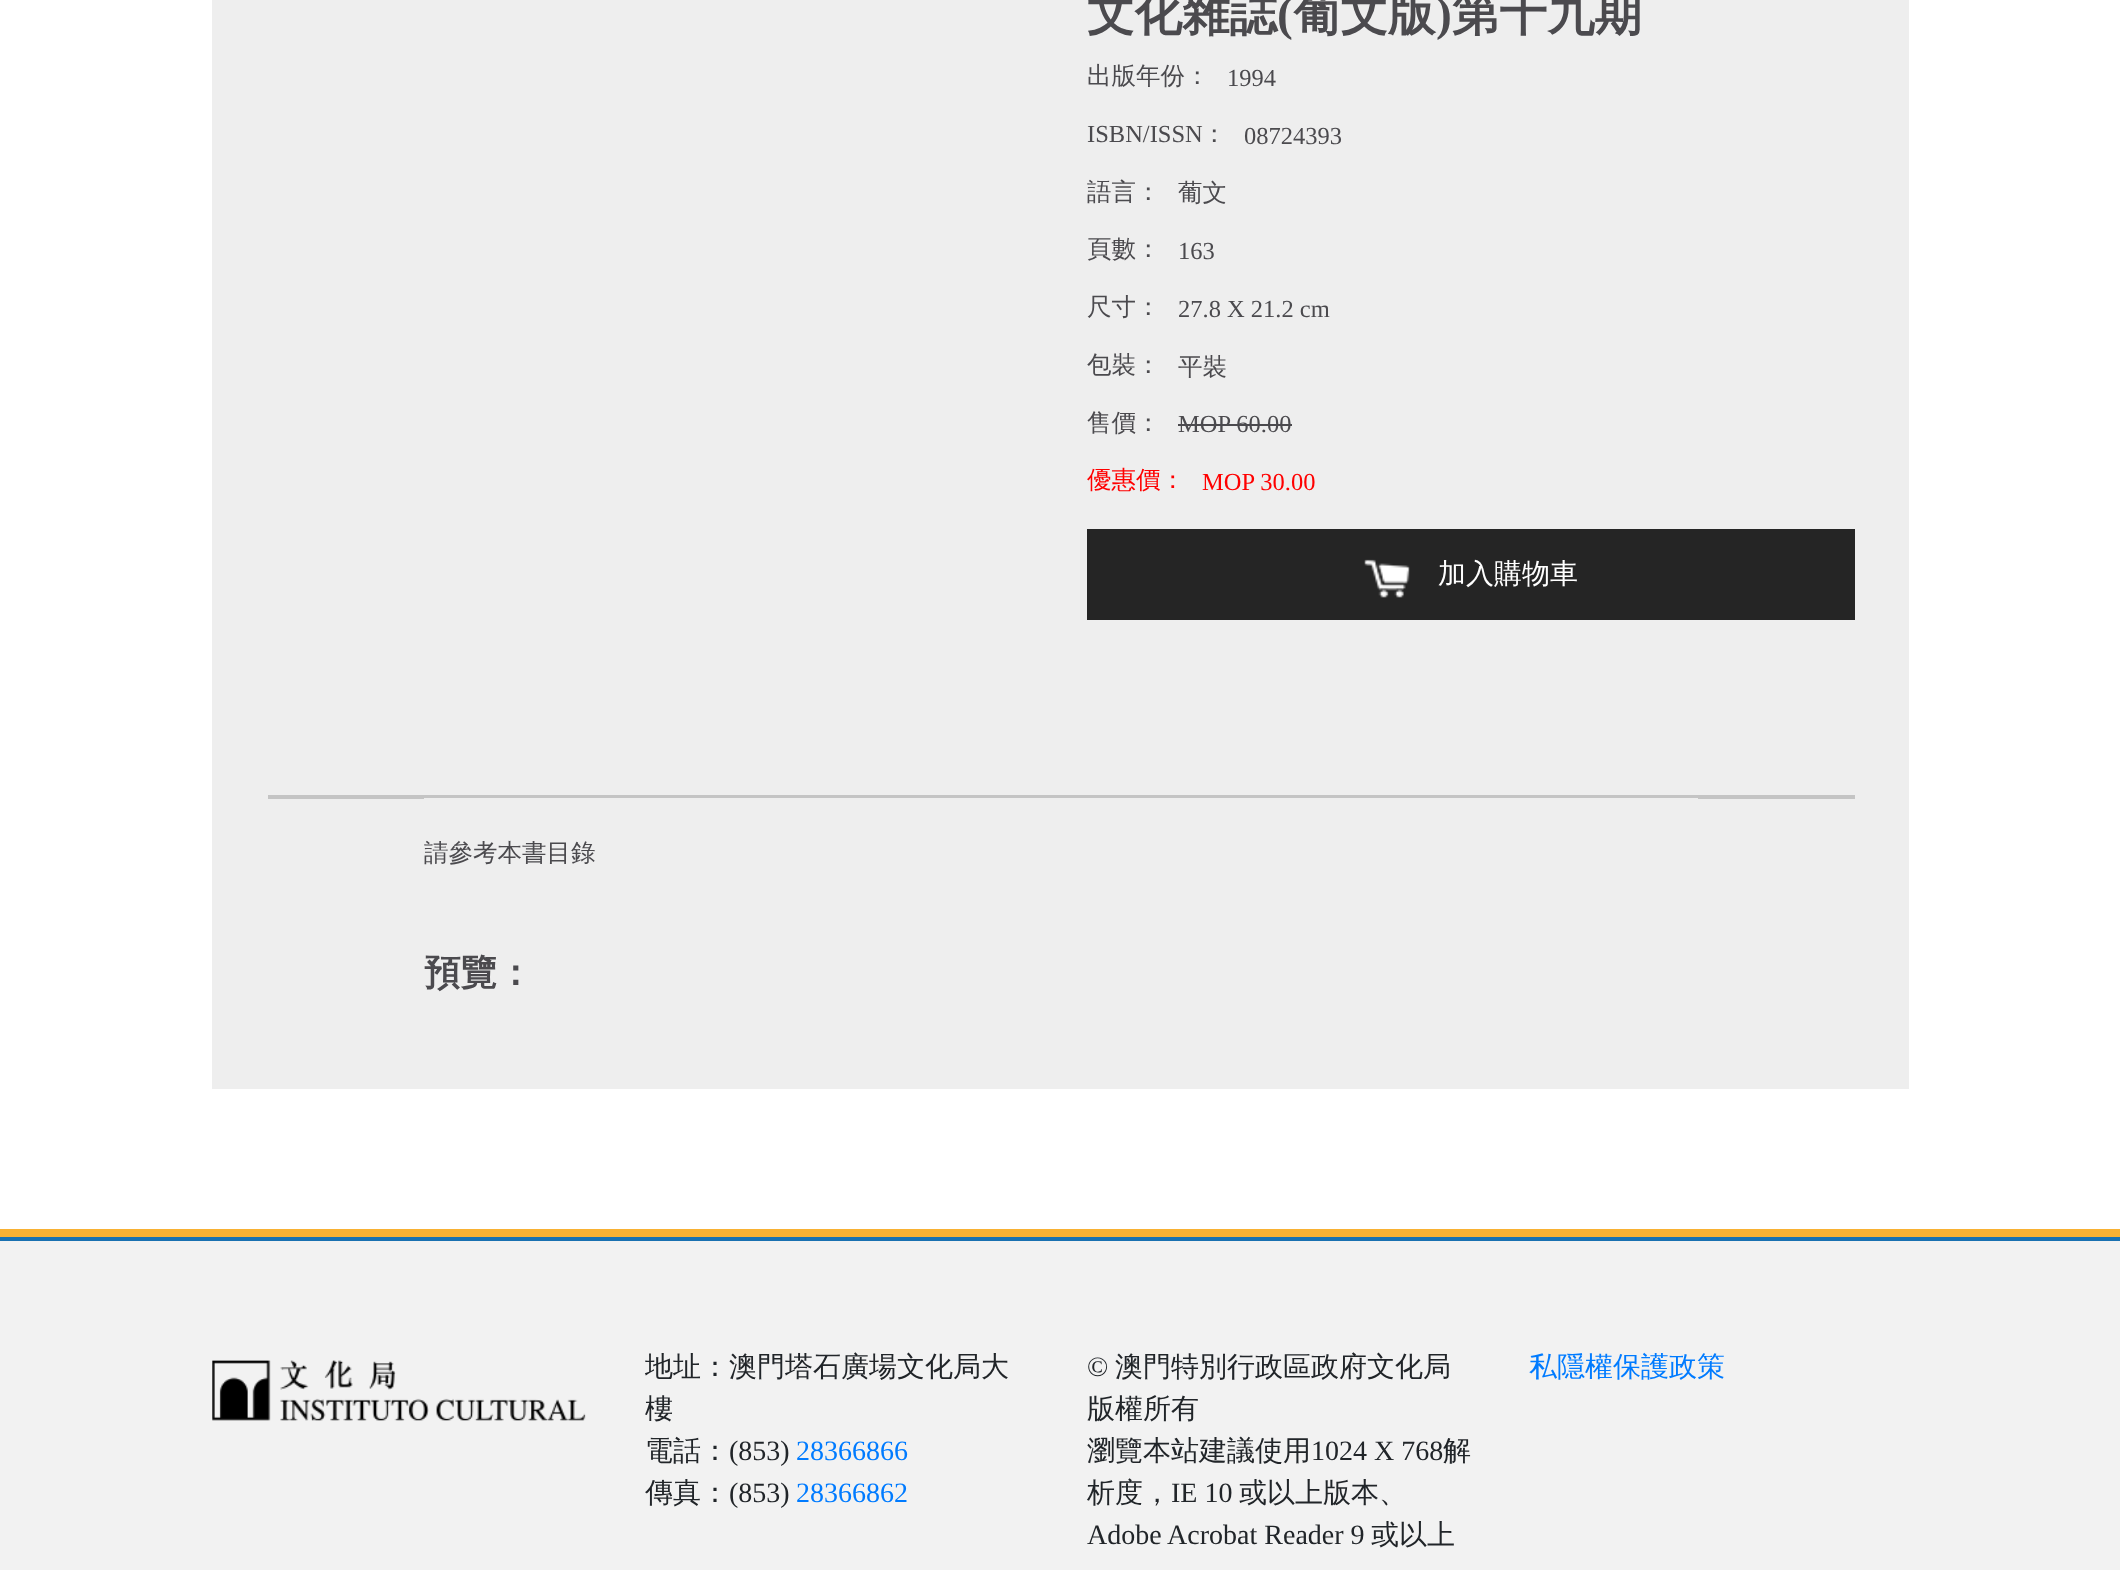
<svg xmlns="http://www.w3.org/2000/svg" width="2120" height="1570">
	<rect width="100%" height="100%" fill="#FFFFFF" />
	<rect x="212" y="0" width="1697" height="1089" fill="#EEEEEE" />
	<text x="1087" y="30" font-family="WenQuanYi Zen Hei" font-size="47.5" font-weight="700" fill="#4B4A4E">文化雜誌</text>
	<text x="1277" y="30" font-family="Liberation Serif" font-size="47.5" font-weight="700" fill="#4B4A4E">(</text>
	<text x="1293" y="30" font-family="WenQuanYi Zen Hei" font-size="47.5" font-weight="700" fill="#4B4A4E">葡文版</text>
	<text x="1436" y="30" font-family="Liberation Serif" font-size="47.5" font-weight="700" fill="#4B4A4E">)</text>
	<text x="1452" y="30" font-family="WenQuanYi Zen Hei" font-size="47.5" font-weight="700" fill="#4B4A4E">第十九期</text>
	<text x="1087" y="84" font-family="WenQuanYi Zen Hei" font-size="24.5" font-weight="500" fill="#4B4A4E">出版年份：</text>
	<g font-family="Liberation Serif" font-size="24.5" fill="#4B4A4E">
		<text x="1227" y="86">1994</text>
		<text x="1087" y="142">ISBN/ISSN</text>
	</g>
	<text x="1202" y="142" font-family="WenQuanYi Zen Hei" font-size="24.5" font-weight="500" fill="#4B4A4E">：</text>
	<text x="1244" y="144" font-family="Liberation Serif" font-size="24.5" fill="#4B4A4E">08724393</text>
	<g font-family="WenQuanYi Zen Hei" font-size="24.5" font-weight="500" fill="#4B4A4E">
		<text x="1087" y="200">語言：</text>
		<text x="1178" y="201">葡文</text>
		<text x="1087" y="257">頁數：</text>
	</g>
	<text x="1178" y="259" font-family="Liberation Serif" font-size="24.5" fill="#4B4A4E">163</text>
	<text x="1087" y="315" font-family="WenQuanYi Zen Hei" font-size="24.5" font-weight="500" fill="#4B4A4E">尺寸：</text>
	<text x="1178" y="317" font-family="Liberation Serif" font-size="24.5" fill="#4B4A4E">27.8 X 21.2 cm</text>
	<g font-family="WenQuanYi Zen Hei" font-size="24.5" font-weight="500" fill="#4B4A4E">
		<text x="1087" y="373">包裝：</text>
		<text x="1178" y="375">平裝</text>
		<text x="1087" y="431">售價：</text>
	</g>
	<text x="1178" y="432" font-family="Liberation Serif" font-size="24.5" fill="#4B4A4E">MOP 60.00</text>
	<rect x="1178" y="424" width="114" height="2" fill="#4B4A4E" />
	<text x="1087" y="488" font-family="WenQuanYi Zen Hei" font-size="24.5" font-weight="500" fill="#FF0000">優惠價：</text>
	<text x="1202" y="490" font-family="Liberation Serif" font-size="24.5" fill="#FF0000">MOP 30.00</text>
	<rect x="1087" y="529" width="768" height="91" fill="#252525" />
	<image x="1364" y="559" width="46" height="39" href="assets/img1.png" />
	<text x="1438" y="583" font-family="WenQuanYi Zen Hei" font-size="28" font-weight="500" fill="#FFFFFF">加入購物車</text>
	<rect x="268" y="795" width="1587" height="4" fill="#C4C4C4" />
	<rect x="424" y="798" width="1274" height="1" fill="#EEEEEE" />
	<text x="424" y="861" font-family="WenQuanYi Zen Hei" font-size="24.5" font-weight="500" fill="#4B4A4E">請參考本書目錄</text>
	<text x="424" y="985" font-family="WenQuanYi Zen Hei" font-size="36.5" font-weight="700" fill="#4B4A4E">預覽：</text>
	<rect x="0" y="1229" width="2120" height="8" fill="#F8B133" />
	<rect x="0" y="1241" width="2120" height="329" fill="#F2F2F2" />
	<rect x="0" y="1237" width="2120" height="4" fill="#1971B1" />
	<image x="212" y="1360" width="374" height="61" href="assets/img2.png" />
	<g font-family="WenQuanYi Zen Hei" font-size="28" font-weight="500" fill="#212529">
		<text x="645" y="1376">地址：澳門塔石廣場文化局大</text>
		<text x="645" y="1418">樓</text>
		<text x="645" y="1460">電話：</text>
	</g>
	<text x="729" y="1460" font-family="Liberation Serif" font-size="28" fill="#212529">(853)</text>
	<text x="796" y="1460" font-family="Liberation Serif" font-size="28" fill="#007BFF">28366866</text>
	<text x="645" y="1502" font-family="WenQuanYi Zen Hei" font-size="28" font-weight="500" fill="#212529">傳真：</text>
	<text x="729" y="1502" font-family="Liberation Serif" font-size="28" fill="#212529">(853)</text>
	<text x="796" y="1502" font-family="Liberation Serif" font-size="28" fill="#007BFF">28366862</text>
	<text x="1087" y="1376" font-family="Liberation Serif" font-size="28" fill="#212529">©</text>
	<g font-family="WenQuanYi Zen Hei" font-size="28" font-weight="500" fill="#212529">
		<text x="1115" y="1376">澳門特別行政區政府文化局</text>
		<text x="1087" y="1418">版權所有</text>
		<text x="1087" y="1460">瀏覽本站建議使用</text>
	</g>
	<text x="1311" y="1460" font-family="Liberation Serif" font-size="28" fill="#212529">1024 X 768</text>
	<g font-family="WenQuanYi Zen Hei" font-size="28" font-weight="500" fill="#212529">
		<text x="1443" y="1460">解</text>
		<text x="1087" y="1502">析度，</text>
	</g>
	<text x="1171" y="1502" font-family="Liberation Serif" font-size="28" fill="#212529">IE 10</text>
	<text x="1239" y="1502" font-family="WenQuanYi Zen Hei" font-size="28" font-weight="500" fill="#212529">或以上版本、</text>
	<text x="1087" y="1544" font-family="Liberation Serif" font-size="28" fill="#212529">Adobe Acrobat Reader 9</text>
	<text x="1371" y="1544" font-family="WenQuanYi Zen Hei" font-size="28" font-weight="500" fill="#212529">或以上</text>
	<text x="1529" y="1376" font-family="WenQuanYi Zen Hei" font-size="28" font-weight="500" fill="#007BFF">私隱權保護政策</text>
</svg>
